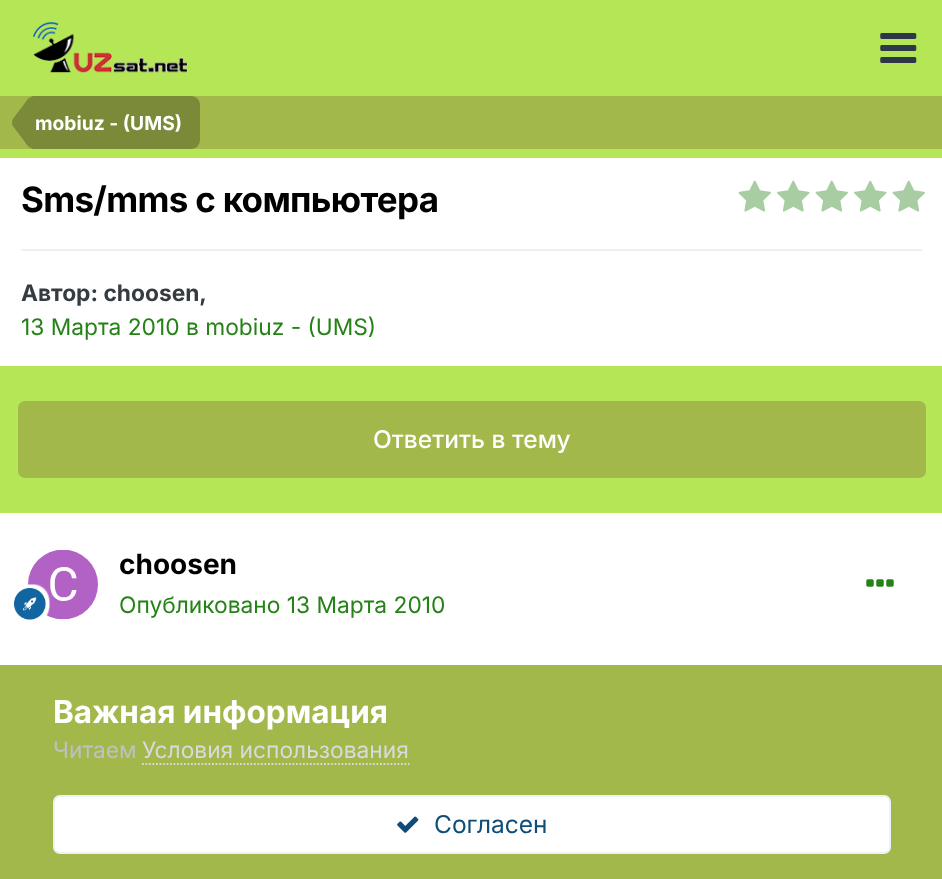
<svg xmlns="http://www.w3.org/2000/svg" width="942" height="879">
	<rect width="100%" height="100%" fill="#B5E655" />
	<image x="33" y="22" width="155" height="51" href="assets/img1.png" />
	<image x="880" y="33" width="37" height="30" href="assets/img2.png" />
	<rect x="0" y="96" width="942" height="53" fill="#A2B84B" />
	<path d="M35 96H191C196 96 200 100 200 105V140C200 145 196 149 191 149H35Z" fill="#7A8A38" />
	<path d="M12.5 125.5L12 122.5H35V149C31 149 27.5 146.5 25 142Z" fill="#7A8A38" />
	<path d="M35 96V122.5H12L12.5 119.5L25 103C27.5 98.5 31 96 35 96Z" fill="#000000" fill-opacity="0.25" />
	<text x="35" y="130" font-family="Inter" font-size="19.25" font-weight="700" fill="#FFFFFF">mobiuz - (UMS)</text>
	<rect x="0" y="158" width="942" height="208" fill="#FFFFFF" />
	<text x="21" y="212" font-family="Inter" font-size="35" font-weight="700" letter-spacing="-0.7" fill="#000000">Sms/mms с компьютера</text>
	<image x="738" y="180" width="33" height="32" href="assets/img3.png" />
	<image x="777" y="180" width="33" height="32" href="assets/img4.png" />
	<image x="815" y="180" width="33" height="32" href="assets/img3.png" />
	<image x="854" y="180" width="33" height="32" href="assets/img4.png" />
	<image x="892" y="180" width="33" height="32" href="assets/img3.png" />
	<rect x="21" y="249" width="901" height="2" fill="#EFEFF0" />
	<text x="21" y="301" font-family="Inter" font-size="22.75" font-weight="700" fill="#353C41">Автор: choosen,</text>
	<text x="21" y="335" font-family="Inter" font-size="22.75" fill="#258216">13 Марта 2010 в mobiuz - (UMS)</text>
	<rect x="18" y="401" width="908" height="77" rx="7" fill="#A2B84B" />
	<text x="373" y="448" font-family="Inter" font-size="24.5" font-weight="500" fill="#FFFFFF">Ответить в тему</text>
	<rect x="0" y="513" width="942" height="152" fill="#FFFFFF" />
	<image x="28" y="550" width="70" height="70" href="assets/img5.png" />
	<image x="14" y="584" width="36" height="36" href="assets/img6.png" />
	<text x="119" y="574" font-family="Inter" font-size="28" font-weight="700" fill="#000000">choosen</text>
	<text x="119" y="613" font-family="Inter" font-size="22.75" fill="#258216">Опубликовано 13 Марта 2010</text>
	<image x="866" y="579" width="28" height="8" href="assets/img7.png" />
	<rect x="0" y="665" width="942" height="214" fill="#A2B84B" />
	<text x="53" y="723" font-family="Inter" font-size="31.5" font-weight="700" fill="#FFFFFF">Важная информация</text>
	<text x="53" y="758" font-family="Inter" font-size="22.75" fill="#C0C0C0">Читаем</text>
	<text x="142" y="758" font-family="Inter" font-size="22.75" fill="#DADADA">Условия использования</text>
	<path d="M142 764H409.5" fill="none" stroke="#DADADA" stroke-width="1.8" stroke-dasharray="1.75 1.75" />
	<rect x="53" y="795" width="838" height="59" rx="7" fill="#FFFFFF" />
	<rect x="54" y="796" width="836" height="57" rx="6" fill="none" stroke="#0E4C79" stroke-opacity="0.07" stroke-width="2" />
	<image x="397" y="816" width="22" height="17" href="assets/img8.png" />
	<text x="434" y="833" font-family="Inter" font-size="24.5" fill="#0E4C79">Согласен</text>
</svg>
